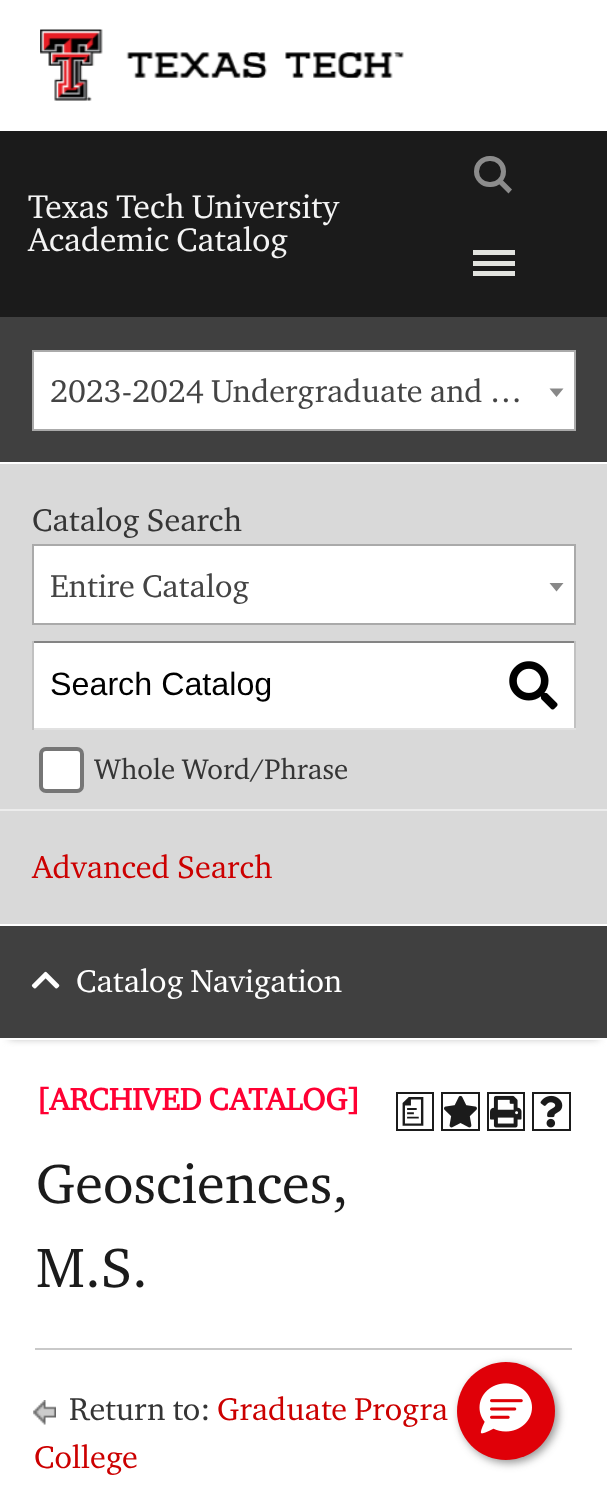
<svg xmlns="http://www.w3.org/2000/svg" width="607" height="1503">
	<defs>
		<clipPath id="clip1"><rect x="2" y="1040" width="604" height="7" /></clipPath>
	</defs>
	<rect width="100%" height="100%" fill="#FFFFFF" />
	<image x="40" y="29" width="364" height="72" href="assets/img1.png" />
	<rect x="0" y="131" width="607" height="186" fill="#1B1B1B" />
	<g font-family="'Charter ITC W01'" font-size="33.5" fill="#F4F4F4">
		<text x="28" y="218">Texas Tech University</text>
		<text x="28" y="251">Academic Catalog</text>
	</g>
	<rect x="476.5" y="158.5" width="27" height="26" rx="13" fill="none" stroke="#8C8C8C" stroke-width="5" />
	<path d="M502.5 180L512 189.5L508.5 193.5L498.5 183.5Z" fill="#8C8C8C" />
	<rect x="473" y="261" width="42" height="5" fill="#E2E3DF" />
	<rect x="473" y="250" width="42" height="5" fill="#E2E3DF" />
	<rect x="473" y="271" width="42" height="5" fill="#E2E3DF" />
	<rect x="0" y="317" width="607" height="145" fill="#404040" />
	<rect x="33" y="351" width="542" height="79" fill="#FFFFFF" stroke="#AAAAAA" stroke-width="2" />
	<text x="50" y="402" font-family="'Charter ITC W01'" font-size="32.25" fill="#444444">2023-2024 Undergraduate and …</text>
	<path d="M549.5 388.5H563.5L556.5 397Z" fill="#888888" />
	<g clip-path="url(#clip1)">
		<rect x="9" y="480" width="590" height="558" fill="#A7A7A7" filter="blur(4.5px)" />
	</g>
	<rect x="0" y="464" width="607" height="460" fill="#D9D9D9" />
	<text x="32" y="531" font-family="'Charter ITC W01'" font-size="32.25" fill="#353535">Catalog Search</text>
	<rect x="33" y="545" width="542" height="79" fill="#FFFFFF" stroke="#AAAAAA" stroke-width="2" />
	<text x="50" y="597" font-family="'Charter ITC W01'" font-size="32.25" fill="#444444">Entire Catalog</text>
	<path d="M549.5 583H563.5L556.5 591.5Z" fill="#888888" />
	<rect x="34" y="643" width="540" height="85" fill="#FFFFFF" />
	<rect x="32" y="641" width="544" height="2" fill="#848484" />
	<rect x="574" y="641" width="2" height="89" fill="#C1C1C1" />
	<rect x="32" y="728" width="544" height="2" fill="#E1E1E1" />
	<rect x="32" y="641" width="2" height="89" fill="#C1C1C1" />
	<text x="50" y="695" font-family="Liberation Sans" font-size="32.25" fill="#000000">Search Catalog</text>
	<image x="509" y="661" width="49" height="49" href="assets/img2.png" />
	<rect x="41" y="749" width="41" height="42" rx="5" fill="#FFFFFF" stroke="#767676" stroke-width="4" />
	<text x="94" y="779" font-family="'Charter ITC W01'" font-size="29" fill="#353535">Whole Word/Phrase</text>
	<rect x="0" y="809" width="607" height="2" fill="#ECECEC" />
	<text x="32" y="878" font-family="'Charter ITC W01'" font-size="32.25" fill="#CC0000">Advanced Search</text>
	<rect x="0" y="926" width="607" height="112" fill="#000000" fill-opacity="0.75" />
	<rect x="0" y="1039" width="607" height="1" fill="#FFFFFF" />
	<image x="31" y="971" width="29" height="18" href="assets/img3.png" />
	<text x="76" y="992" font-family="'Charter ITC W01'" font-size="32.25" fill="#FFFFFF">Catalog Navigation</text>
	<text x="36" y="1110" font-family="'Charter ITC W01'" font-size="31.5" font-weight="700" fill="#FF0033">[ARCHIVED CATALOG]</text>
	<rect x="397" y="1093" width="36" height="37" fill="none" stroke="#1B1B1B" stroke-width="2" />
	<text x="397" y="1121" font-family="'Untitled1'" font-size="31.5" font-weight="500" fill="#1B1B1B">a</text>
	<rect x="442" y="1093" width="37" height="37" fill="none" stroke="#1B1B1B" stroke-width="2" />
	<image x="444" y="1095" width="33" height="33" href="assets/img4.png" />
	<rect x="488" y="1093" width="36" height="37" fill="none" stroke="#1B1B1B" stroke-width="2" />
	<image x="490" y="1095" width="32" height="33" href="assets/img5.png" />
	<rect x="533" y="1093" width="37" height="37" fill="none" stroke="#1B1B1B" stroke-width="2" />
	<image x="540" y="1095" width="23" height="33" href="assets/img6.png" />
	<g font-family="'Charter ITC W01'" font-size="56.5" fill="#1B1B1B">
		<text x="36" y="1203">Geosciences,</text>
		<text x="36" y="1287">M.S.</text>
	</g>
	<rect x="35" y="1348" width="537" height="2" fill="#C9C9C9" />
	<image x="33" y="1400" width="23" height="25" href="assets/img7.png" />
	<text x="69" y="1420" font-family="'Charter ITC W01'" font-size="32.25" fill="#353535">Return to:</text>
	<g font-family="'Charter ITC W01'" font-size="32.25" fill="#CC0000">
		<text x="217" y="1420">Graduate Progra</text>
		<text x="34" y="1468">College</text>
	</g>
	<rect x="460" y="1365" width="98" height="98" rx="49" fill="#2D2D2D" fill-opacity="0.5" filter="blur(4.5px)" />
	<circle cx="506" cy="1411" r="49" fill="#E00008" />
	<image x="479" y="1383" width="53" height="51" href="assets/img8.png" />
</svg>
